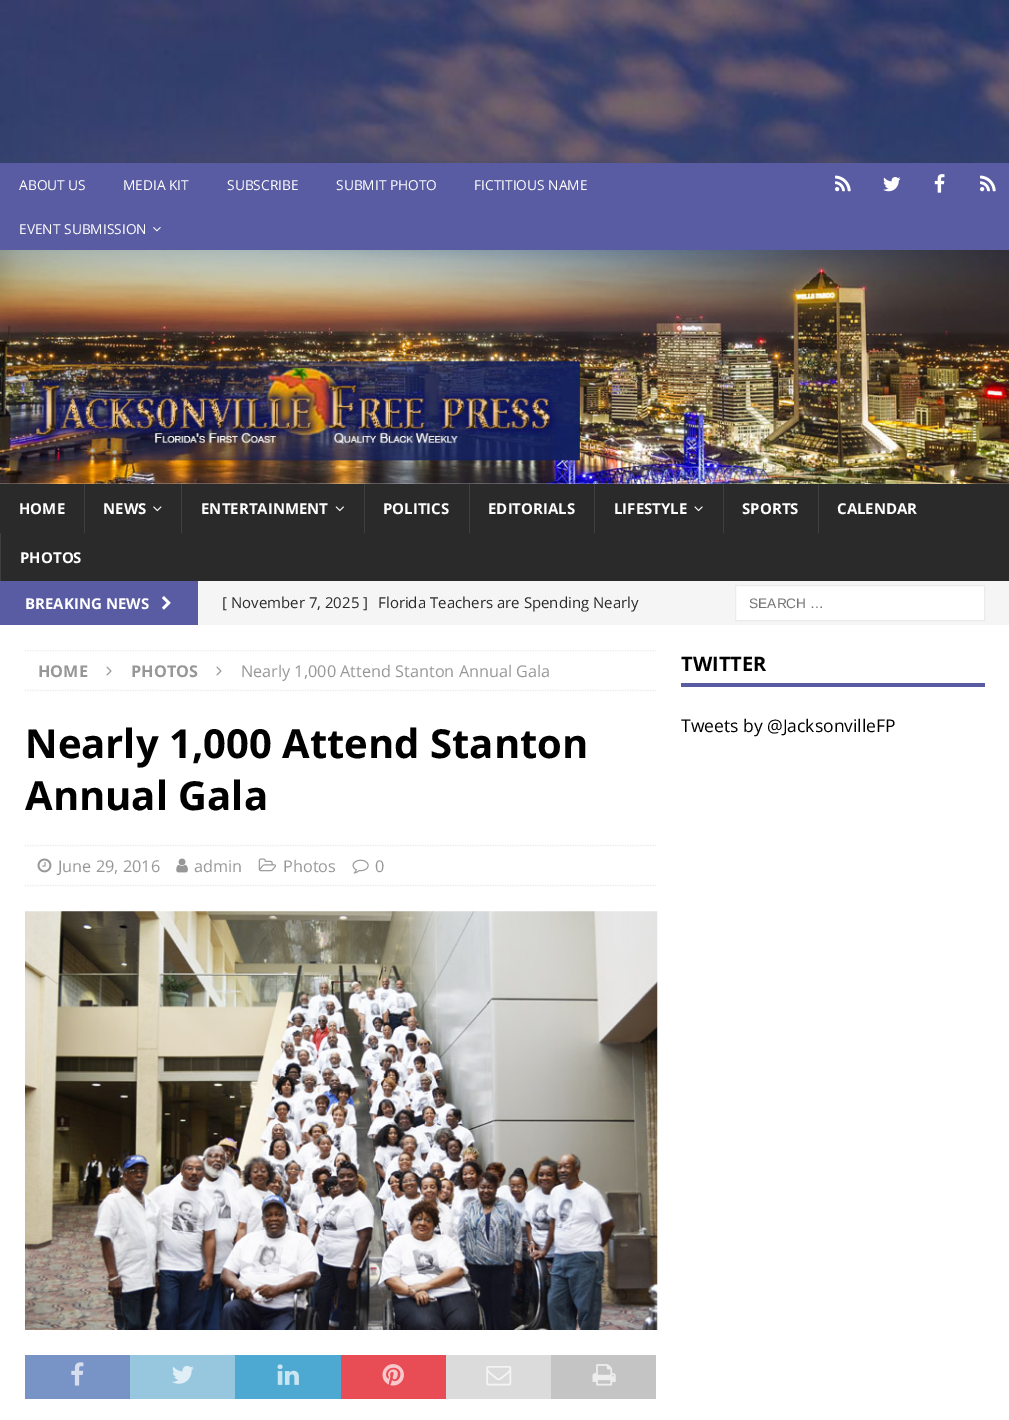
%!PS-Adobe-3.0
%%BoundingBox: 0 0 1009 1420
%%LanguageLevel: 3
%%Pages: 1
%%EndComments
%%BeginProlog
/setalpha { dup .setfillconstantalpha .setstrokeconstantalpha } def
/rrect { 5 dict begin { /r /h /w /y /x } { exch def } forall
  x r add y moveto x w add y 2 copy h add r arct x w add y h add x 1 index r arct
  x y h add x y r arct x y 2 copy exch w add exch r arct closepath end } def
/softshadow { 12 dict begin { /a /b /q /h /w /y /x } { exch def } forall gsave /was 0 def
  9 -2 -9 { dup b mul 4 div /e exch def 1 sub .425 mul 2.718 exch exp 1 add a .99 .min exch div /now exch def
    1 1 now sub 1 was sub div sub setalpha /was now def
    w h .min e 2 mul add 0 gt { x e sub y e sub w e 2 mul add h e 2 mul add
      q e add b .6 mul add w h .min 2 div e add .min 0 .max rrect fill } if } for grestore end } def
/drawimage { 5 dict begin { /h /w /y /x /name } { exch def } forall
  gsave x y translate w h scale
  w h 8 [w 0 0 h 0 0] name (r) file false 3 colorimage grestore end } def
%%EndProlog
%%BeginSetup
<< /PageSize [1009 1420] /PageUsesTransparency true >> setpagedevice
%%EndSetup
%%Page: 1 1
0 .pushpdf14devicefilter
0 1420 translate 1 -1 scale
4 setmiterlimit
1 setgray
0 0 1009 1420 rectfill
(images/1.raw) 0 0 1009 484 drawimage
0.196 setgray
0 163 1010 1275 0 6 0.17 softshadow
0.349 0.361 0.639 setrgbcolor
0 163 1009 87 rectfill
(images/2.raw) 153 227 8 5 drawimage
(images/3.raw) 835 175 16 17 drawimage
(images/4.raw) 883 177 18 15 drawimage
(images/5.raw) 934 174 11 19 drawimage
(images/3.raw) 980 175 16 17 drawimage
(images/6.raw) 0 250 1009 234 drawimage
0.165 setgray
0 484 1009 97 rectfill
0.247 setgray
84 484 1 49 rectfill
(images/7.raw) 153 506 9 6 drawimage
181 484 1 49 rectfill
(images/8.raw) 335 506 9 6 drawimage
364 484 1 49 rectfill
469 484 1 49 rectfill
594 484 1 49 rectfill
(images/9.raw) 694 506 9 6 drawimage
723 484 1 49 rectfill
818 484 1 49 rectfill
0 533 1 48 rectfill
0.961 setgray
198 581 811 44 rectfill
0.349 0.361 0.639 setrgbcolor
0 581 198 44 rectfill
(images/10.raw) 162 596 9 14 drawimage
1 setgray
newpath 735.5 585.5 moveto 984.5 585.5 lineto 984.5 620.5 lineto 735.5 620.5 lineto closepath gsave fill grestore
0.922 setgray
stroke
1 setgray
0 625 1009 795 rectfill
gsave
25 650 633 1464 rectclip
0.922 setgray
1.2 setlinewidth
[1.25 1.25] 0 setdash
newpath 25 650.5 moveto 657.5 650.5 lineto stroke
grestore
0.922 setgray
1.2 setlinewidth
[1.25 1.25] 0 setdash
newpath 25 690.5 moveto 657.5 690.5 lineto stroke
(images/11.raw) 106 666 6 10 drawimage
(images/11.raw) 216 666 6 10 drawimage
newpath 25 845.5 moveto 657.5 845.5 lineto stroke
newpath 25 885.5 moveto 657.5 885.5 lineto stroke
(images/12.raw) 37 858 15 15 drawimage
(images/13.raw) 176 858 12 15 drawimage
(images/14.raw) 258 858 18 14 drawimage
(images/15.raw) 352 859 17 15 drawimage
(images/16.raw) 25 911 633 419 drawimage
0.471 0.576 0.776 setrgbcolor
25 1355 105 44 rectfill
(images/17.raw) 71 1362 13 24 drawimage
0.592 0.776 0.875 setrgbcolor
130 1355 105 44 rectfill
(images/18.raw) 172 1365 22 19 drawimage
0.302 0.663 0.824 setrgbcolor
235 1355 106 44 rectfill
(images/19.raw) 277 1364 22 21 drawimage
0.91 0.302 0.337 setrgbcolor
341 1355 105 44 rectfill
(images/20.raw) 382 1364 22 22 drawimage
0.859 setgray
446 1355 105 44 rectfill
(images/21.raw) 486 1366 26 20 drawimage
0.769 setgray
551 1355 105 44 rectfill
(images/22.raw) 592 1364 24 22 drawimage
0.349 0.361 0.639 setrgbcolor
681 683 304 4 rectfill
/OpenSans-Regular [13.75 0 0 -13.75 0 0] selectfont
1 setgray
19 190 moveto (ABOUT US) show
123 190 moveto (MEDIA KIT) show
227 190 moveto (SUBSCRIBE) show
336 190 moveto (SUBMIT PHOTO) show
474 190 moveto (FICTITIOUS NAME) show
19 234 moveto (EVENT SUBMISSION) show
/OpenSans-Bold [15 0 0 -15 0 0] selectfont
19 514 moveto (HOME) show
103 514 moveto (NEWS) show
201 514 moveto (ENTERTAINMENT) show
383 514 moveto (POLITICS) show
488 514 moveto (EDITORIALS) show
614 514 moveto (LIFESTYLE) show
742 514 moveto (SPORTS) show
837 514 moveto (CALENDAR) show
20 563 moveto (PHOTOS) show
25 609 moveto (BREAKING NEWS) show
/OpenSans-Regular [15 0 0 -15 0 0] selectfont
0.165 setgray
222 608 moveto ([ November 7, 2025 ]) show
378 608 moveto (Florida Teachers are Spending Nearly) show
/LiberationSans-Regular [13.75 0 0 -13.75 0 0] selectfont
0.459 setgray
749 608 moveto (SEARCH …) show
/OpenSans-Bold [16.25 0 0 -16.25 0 0] selectfont
0.592 setgray
38 677 moveto (HOME) show
131 677 moveto (PHOTOS) show
/OpenSans-Regular [16.25 0 0 -16.25 0 0] selectfont
241 677 moveto (Nearly 1,000 Attend Stanton Annual Gala) show
/OpenSans-Bold [40 0 0 -40 0 0] selectfont
0 setgray
25 758 moveto (Nearly 1,000 Attend Stanton) show
25 810 moveto (Annual Gala) show
/OpenSans-Regular [16.25 0 0 -16.25 0 0] selectfont
0.592 setgray
58 872 moveto (June 29, 2016) show
194 872 moveto (admin) show
283 872 moveto (Photos) show
375 872 moveto (0) show
/OpenSans-Bold [20 0 0 -20 0 0] selectfont
0 setgray
681 671 moveto (TWITTER) show
/OpenSans-Regular [17.5 0 0 -17.5 0 0] selectfont
681 732 moveto (Tweets by @JacksonvilleFP) show
.poppdf14devicefilter showpage
%%EOF
